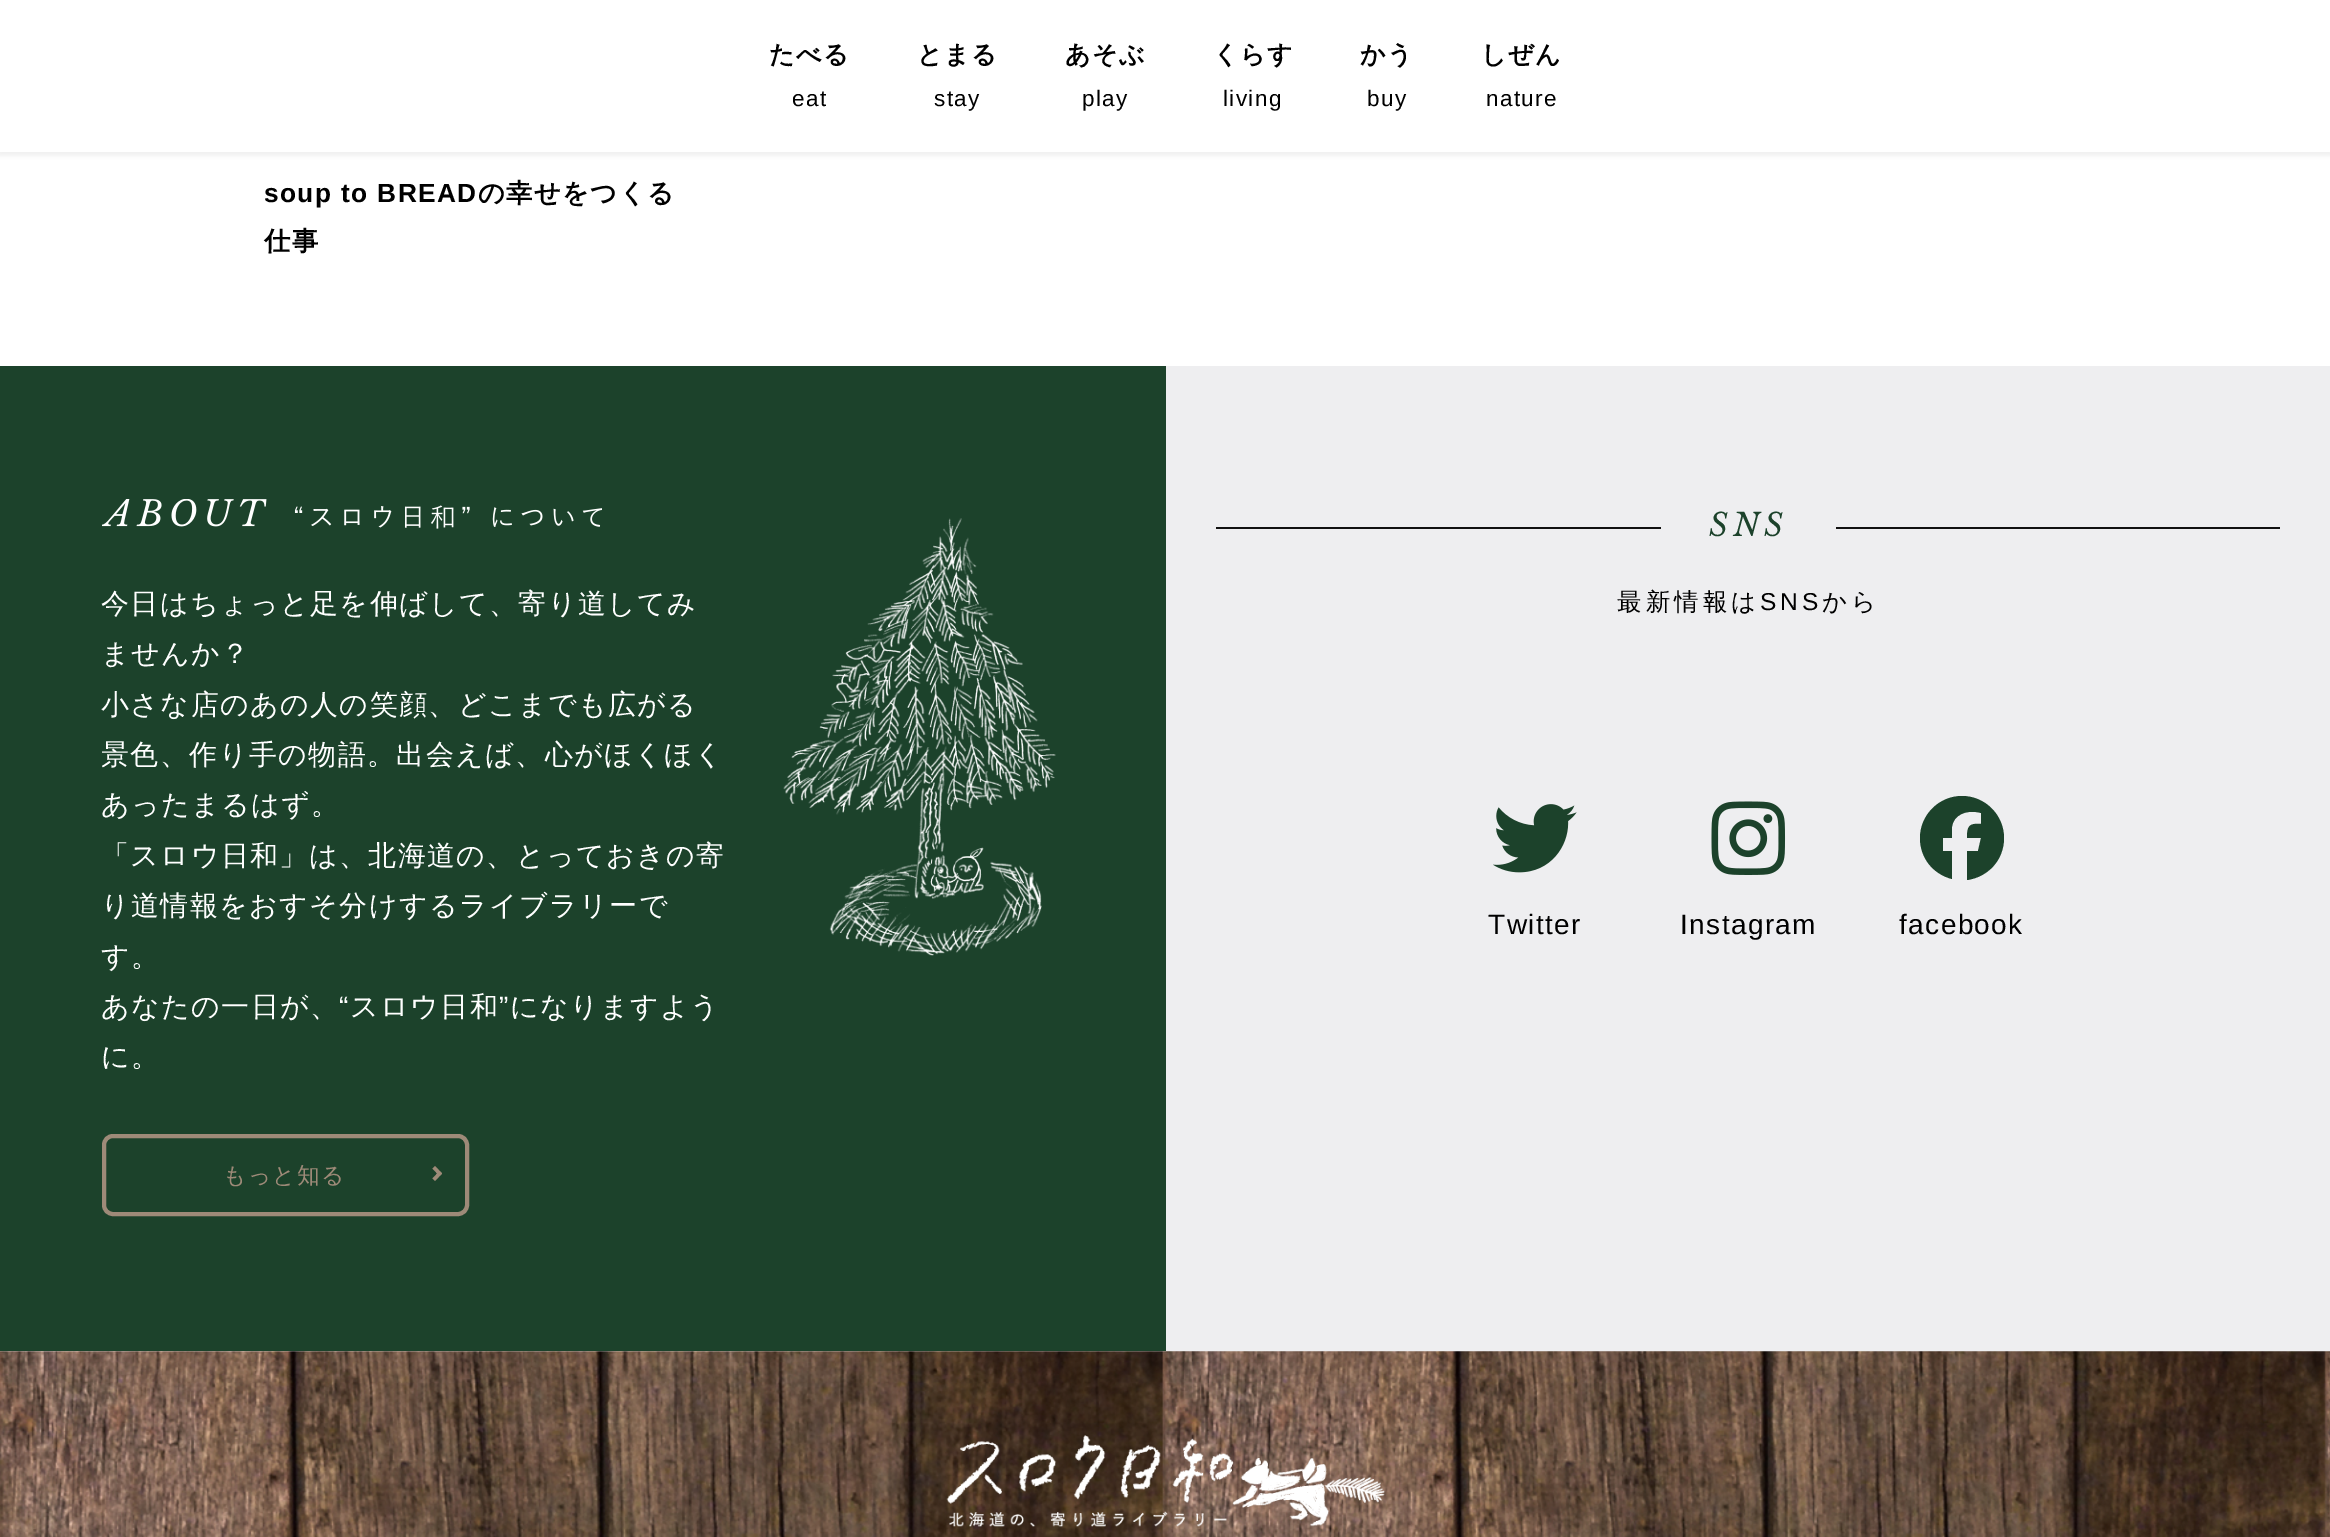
%!PS-Adobe-3.0
%%BoundingBox: 0 0 2330 1537
%%LanguageLevel: 3
%%Pages: 1
%%EndComments
%%BeginProlog
/setalpha { dup .setfillconstantalpha .setstrokeconstantalpha } def
/rrect { 5 dict begin { /r /h /w /y /x } { exch def } forall
  x r add y moveto x w add y 2 copy h add r arct x w add y h add x 1 index r arct
  x y h add x y r arct x y 2 copy exch w add exch r arct closepath end } def
/softshadow { 12 dict begin { /a /b /q /h /w /y /x } { exch def } forall gsave /was 0 def
  9 -2 -9 { dup b mul 4 div /e exch def 1 sub .425 mul 2.718 exch exp 1 add a .99 .min exch div /now exch def
    1 1 now sub 1 was sub div sub setalpha /was now def
    w h .min e 2 mul add 0 gt { x e sub y e sub w e 2 mul add h e 2 mul add
      q e add b .6 mul add w h .min 2 div e add .min 0 .max rrect fill } if } for grestore end } def
/drawimage { 5 dict begin { /h /w /y /x /name } { exch def } forall
  gsave x y translate w h scale
  w h 8 [w 0 0 h 0 0] name (r) file false 3 colorimage grestore end } def
%%EndProlog
%%BeginSetup
<< /PageSize [2330 1537] /PageUsesTransparency true >> setpagedevice
%%EndSetup
%%Page: 1 1
0 .pushpdf14devicefilter
0 1537 translate 1 -1 scale
4 setmiterlimit
1 setgray
0 0 2330 1537 rectfill
0 setgray
-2 0 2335 156 0 2 0.05 softshadow
1 setgray
0 0 2330 152 rectfill
0.933 0.933 0.941 setrgbcolor
0 366 2330 986 rectfill
0.11 0.259 0.169 setrgbcolor
0 366 1166 985 rectfill
(images/1.raw) 102 499 500 30 drawimage
0.62 0.541 0.471 setrgbcolor
4 setlinewidth
104 1136 363 78 9 rrect stroke
newpath 435 1166 moveto 442 1173.5 lineto 439.5 1176 lineto 432.5 1168.5 lineto closepath fill
newpath 439.5 1171 moveto 442 1173.5 lineto 435 1181 lineto 432.5 1178.5 lineto closepath fill
(images/2.raw) 783 518 273 438 drawimage
0.067 setgray
1216 527 445 2 rectfill
1836 527 444 2 rectfill
(images/3.raw) 1493 804 84 69 drawimage
(images/4.raw) 1711 801 75 74 drawimage
0.11 0.259 0.169 setrgbcolor
newpath 2004 838 moveto 2004 815 1985 796 1962 796 curveto 1939 796 1920 815 1920 838 curveto 1920 858 1933 874 1952 879 curveto 1952 851 lineto 1943 851 lineto 1943 838 lineto 1952 838 lineto 1952 833 1951 828 1953 823 curveto 1957 812 1971 810 1981 813 curveto 1981 824 lineto 1969 823 1967 826 1967 838 curveto 1981 838 lineto 1978 851 lineto 1967 851 lineto 1967 880 lineto 1988 877 2004 860 2004 838 curveto closepath fill
(images/5.raw) 0 1351 2330 186 drawimage
(images/6.raw) 946 1435 439 92 drawimage
/WenQuanYiZenHei-Bold [25 0 0 -25 0 0] selectfont
0 setgray
769 63 moveto 1.4 0 (たべる) ashow
/LiberationSans-Regular [22.5 0 0 -22.5 0 0] selectfont
792 106 moveto 1.4 0 (eat) ashow
/WenQuanYiZenHei-Bold [25 0 0 -25 0 0] selectfont
917 63 moveto 1.4 0 (とまる) ashow
/LiberationSans-Regular [22.5 0 0 -22.5 0 0] selectfont
934 106 moveto 1.4 0 (stay) ashow
/WenQuanYiZenHei-Bold [25 0 0 -25 0 0] selectfont
1065 63 moveto 1.4 0 (あそぶ) ashow
/LiberationSans-Regular [22.5 0 0 -22.5 0 0] selectfont
1082 106 moveto 1.4 0 (play) ashow
/WenQuanYiZenHei-Bold [25 0 0 -25 0 0] selectfont
1213 63 moveto 1.4 0 (くらす) ashow
/LiberationSans-Regular [22.5 0 0 -22.5 0 0] selectfont
1223 106 moveto 1.4 0 (living) ashow
/WenQuanYiZenHei-Bold [25 0 0 -25 0 0] selectfont
1360 63 moveto 1.4 0 (かう) ashow
/LiberationSans-Regular [22.5 0 0 -22.5 0 0] selectfont
1367 106 moveto 1.4 0 (buy) ashow
/WenQuanYiZenHei-Bold [25 0 0 -25 0 0] selectfont
1481 63 moveto 1.4 0 (しぜん) ashow
/LiberationSans-Regular [22.5 0 0 -22.5 0 0] selectfont
1486 106 moveto 1.4 0 (nature) ashow
/LiberationSans-Bold [26.25 0 0 -26.25 0 0] selectfont
264 202 moveto 1.4 0 (soup to BREAD) ashow
/WenQuanYiZenHei-Bold [26.25 0 0 -26.25 0 0] selectfont
478 202 moveto 1.4 0 (の幸せをつくる) ashow
264 250 moveto 1.4 0 (仕事) ashow
/WenQuanYiZenHei-Medium [28 0 0 -28 0 0] selectfont
1 setgray
101 613 moveto 1.4 0 (今日はちょっと足を伸ばして、寄り道してみ) ashow
101 663 moveto 1.4 0 (ませんか？) ashow
101 714 moveto 1.4 0 (小さな店のあの人の笑顔、どこまでも広がる) ashow
gsave
102 499 962 717 rectclip
101 764 moveto 1.4 0 (景色、作り手の物語。出会えば、心がほくほく) ashow
grestore
101 814 moveto 1.4 0 (あったまるはず。) ashow
101 865 moveto 1.4 0 (「スロウ日和」は、北海道の、とっておきの寄) ashow
101 915 moveto 1.4 0 (り道情報をおすそ分けするライブラリーで) ashow
101 966 moveto 1.4 0 (す。) ashow
101 1016 moveto 1.4 0 (あなたの一日が、) ashow
/LiberationSans-Regular [28 0 0 -28 0 0] selectfont
339 1016 moveto 1.4 0 (“) ashow
/WenQuanYiZenHei-Medium [28 0 0 -28 0 0] selectfont
350 1016 moveto 1.4 0 (スロウ日和) ashow
/LiberationSans-Regular [28 0 0 -28 0 0] selectfont
499 1016 moveto 1.4 0 (”) ashow
/WenQuanYiZenHei-Medium [28 0 0 -28 0 0] selectfont
510 1016 moveto 1.4 0 (になりますよう) ashow
101 1066 moveto 1.4 0 (に。) ashow
/WenQuanYiZenHei-Medium [22.75 0 0 -22.75 0 0] selectfont
0.62 0.541 0.471 setrgbcolor
223 1183 moveto 1.4 0 (もっと知る) ashow
/LibreBaskerville-Italic [31.5 0 0 -31.5 0 0] selectfont
0.11 0.259 0.169 setrgbcolor
1709 536 moveto 5 0 (SNS) ashow
/WenQuanYiZenHei-Medium [24.5 0 0 -24.5 0 0] selectfont
0 setgray
1617 610 moveto 4 0 (最新情報は) ashow
/LiberationSans-Regular [24.5 0 0 -24.5 0 0] selectfont
1760 610 moveto 4 0 (SNS) ashow
/WenQuanYiZenHei-Medium [24.5 0 0 -24.5 0 0] selectfont
1822 610 moveto 4 0 (から) ashow
/LiberationSans-Regular [28 0 0 -28 0 0] selectfont
1488 934 moveto 1.4 0 (Twitter) ashow
1680 934 moveto 1.4 0 (Instagram) ashow
1899 934 moveto 1.4 0 (facebook) ashow
.poppdf14devicefilter showpage
%%EOF
